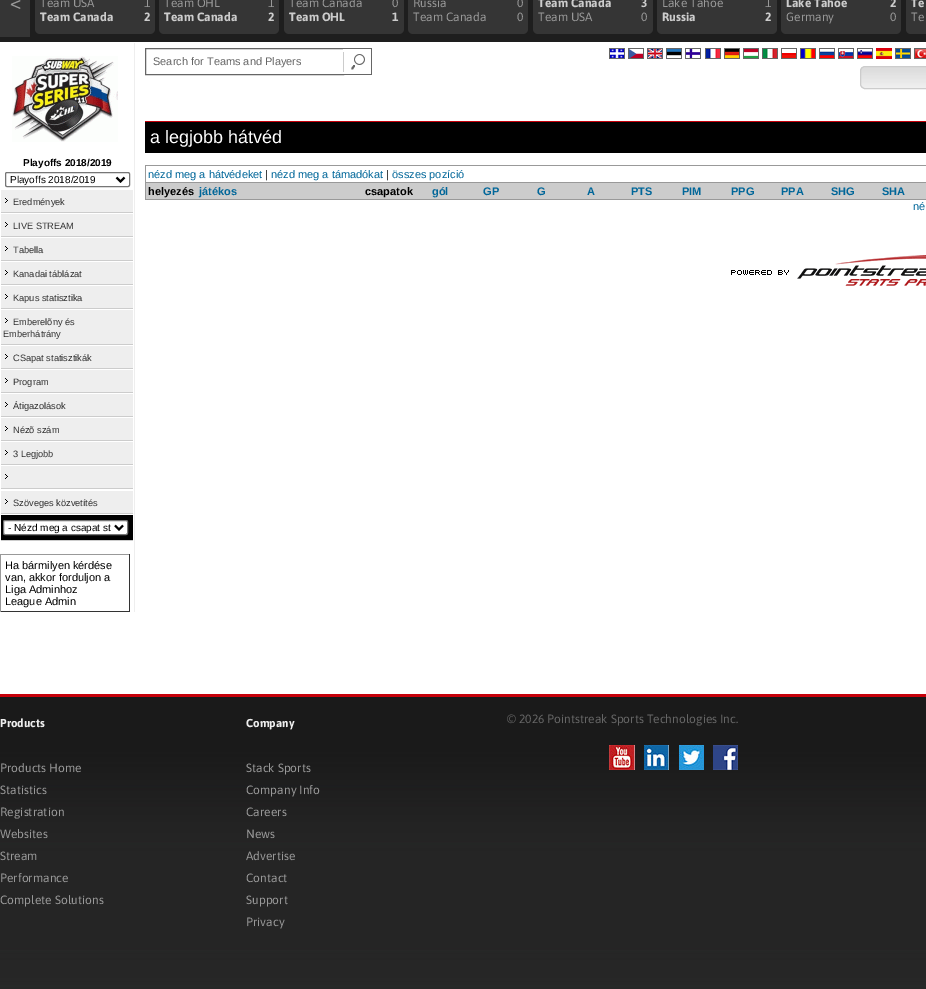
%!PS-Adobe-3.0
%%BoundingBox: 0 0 926 989
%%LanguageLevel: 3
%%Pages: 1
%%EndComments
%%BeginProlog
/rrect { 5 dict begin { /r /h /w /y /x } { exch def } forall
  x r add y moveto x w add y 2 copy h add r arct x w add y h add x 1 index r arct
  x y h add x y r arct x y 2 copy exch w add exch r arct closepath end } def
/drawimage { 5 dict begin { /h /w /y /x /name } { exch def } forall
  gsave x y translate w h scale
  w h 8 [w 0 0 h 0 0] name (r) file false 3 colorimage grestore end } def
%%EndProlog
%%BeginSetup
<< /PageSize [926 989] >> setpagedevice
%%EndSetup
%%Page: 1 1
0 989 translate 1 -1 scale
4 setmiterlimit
1 setgray
0 0 926 989 rectfill
0.118 setgray
0 0 926 42 rectfill
0.208 setgray
0 0 30 37 rectfill
35 -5 120 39 5 rrect fill
159 -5 120 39 5 rrect fill
284 -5 120 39 5 rrect fill
408 -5 120 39 5 rrect fill
533 -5 120 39 5 rrect fill
657 -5 120 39 5 rrect fill
781 -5 120 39 5 rrect fill
newpath 911 -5 moveto 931 -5 lineto 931 34 lineto 911 34 lineto 908 34 906 32 906 29 curveto 906 0 lineto 906 -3 908 -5 911 -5 curveto closepath fill
(images/1.raw) 609 48 16 11 drawimage
(images/2.raw) 628 48 16 11 drawimage
(images/3.raw) 647 48 16 11 drawimage
(images/4.raw) 666 48 16 11 drawimage
(images/5.raw) 685 48 16 11 drawimage
(images/6.raw) 705 48 16 11 drawimage
(images/7.raw) 724 48 16 11 drawimage
(images/8.raw) 743 48 16 11 drawimage
(images/9.raw) 762 48 16 11 drawimage
(images/10.raw) 781 48 16 11 drawimage
(images/11.raw) 800 48 16 11 drawimage
(images/12.raw) 819 48 16 11 drawimage
(images/13.raw) 838 48 16 11 drawimage
(images/14.raw) 857 48 16 11 drawimage
(images/15.raw) 876 48 16 11 drawimage
(images/16.raw) 895 48 16 11 drawimage
(images/17.raw) 914 48 12 11 drawimage
0.4 setgray
145.5 48.5 198 26 rectstroke
(images/18.raw) 343 48 29 27 drawimage
(images/19.raw) 860 67 66 22 drawimage
0.8 setgray
860.5 66.5 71 22 4.5 rrect stroke
0 setgray
145 122 781 31 rectfill
0.776 0 0.039 setrgbcolor
145 121 781 1 rectfill
0.6 setgray
145 165 781 35 rectfill
1 setgray
146 166 780 16 rectfill
0.8 setgray
146 183 780 16 rectfill
(images/20.raw) 731 255 195 31 drawimage
0.933 setgray
134 43 1 569 rectfill
(images/21.raw) 12 56 106 86 drawimage
0.463 setgray
5.5 172.5 124 14 1.5 rrect stroke
0 setgray
2 setlinewidth
newpath 116.5 177.5 moveto 120.5 181.5 lineto 124.5 177.5 lineto stroke
0.933 setgray
1 190 132 22 rectfill
0.8 setgray
1 212 132 1 rectfill
(images/22.raw) 5 198 3 5 drawimage
0.933 setgray
1 214 132 22 rectfill
0.8 setgray
1 236 132 1 rectfill
(images/22.raw) 5 222 3 5 drawimage
0.933 setgray
1 238 132 22 rectfill
0.8 setgray
1 260 132 1 rectfill
(images/22.raw) 5 246 3 5 drawimage
0.933 setgray
1 262 132 22 rectfill
0.8 setgray
1 284 132 1 rectfill
(images/22.raw) 5 270 3 5 drawimage
0.933 setgray
1 286 132 22 rectfill
0.8 setgray
1 308 132 1 rectfill
(images/22.raw) 5 294 3 5 drawimage
0.933 setgray
1 310 132 34 rectfill
0.8 setgray
1 344 132 1 rectfill
(images/22.raw) 5 318 3 5 drawimage
0.933 setgray
1 346 132 22 rectfill
0.8 setgray
1 368 132 1 rectfill
(images/22.raw) 5 354 3 5 drawimage
0.933 setgray
1 370 132 22 rectfill
0.8 setgray
1 392 132 1 rectfill
(images/22.raw) 5 378 3 5 drawimage
0.933 setgray
1 394 132 22 rectfill
0.8 setgray
1 416 132 1 rectfill
(images/22.raw) 5 402 3 5 drawimage
0.933 setgray
1 418 132 22 rectfill
0.8 setgray
1 440 132 1 rectfill
(images/22.raw) 5 426 3 5 drawimage
0.933 setgray
1 442 132 22 rectfill
0.8 setgray
1 464 132 1 rectfill
(images/22.raw) 5 450 3 5 drawimage
0.933 setgray
1 466 132 22 rectfill
0.8 setgray
1 488 132 1 rectfill
(images/22.raw) 5 474 3 5 drawimage
0.933 setgray
1 491 132 22 rectfill
0.8 setgray
1 513 132 1 rectfill
(images/22.raw) 5 499 3 5 drawimage
0 setgray
1 515 132 25 rectfill
0.8 setgray
1 540 132 1 rectfill
1 setgray
3.5 520.5 124 14 1.5 rrect gsave fill grestore
0.463 setgray
1 setlinewidth
stroke
0 setgray
2 setlinewidth
newpath 115 525.5 moveto 119 529.5 lineto 123 525.5 lineto stroke
0.6 setgray
0 554 130 1 rectfill
0.2 setgray
129 554 1 58 rectfill
0 611 130 1 rectfill
0.6 setgray
0 554 1 58 rectfill
(images/23.raw) 0 697 926 292 drawimage
0.776 0 0.039 setrgbcolor
0 694 926 3 rectfill
(images/24.raw) 609 745 26 25 drawimage
(images/25.raw) 644 745 25 25 drawimage
(images/26.raw) 679 745 25 25 drawimage
(images/27.raw) 713 745 25 25 drawimage
/Asap-Regular [20 0 0 -20 0 0] selectfont
0.6 setgray
10 9 moveto (<) show
/Asap-Regular [12 0 0 -12 0 0] selectfont
40 7 moveto (Team USA) show
144 7 moveto (1) show
/Asap-Bold [12 0 0 -12 0 0] selectfont
0.8 setgray
40 21 moveto (Team Canada) show
144 21 moveto (2) show
/Asap-Regular [12 0 0 -12 0 0] selectfont
0.6 setgray
164 7 moveto (Team OHL) show
268 7 moveto (1) show
/Asap-Bold [12 0 0 -12 0 0] selectfont
0.8 setgray
164 21 moveto (Team Canada) show
268 21 moveto (2) show
/Asap-Regular [12 0 0 -12 0 0] selectfont
0.6 setgray
289 7 moveto (Team Canada) show
392 7 moveto (0) show
/Asap-Bold [12 0 0 -12 0 0] selectfont
0.8 setgray
289 21 moveto (Team OHL) show
392 21 moveto (1) show
/Asap-Regular [12 0 0 -12 0 0] selectfont
0.6 setgray
413 7 moveto (Russia) show
517 7 moveto (0) show
413 21 moveto (Team Canada) show
517 21 moveto (0) show
/Asap-Bold [12 0 0 -12 0 0] selectfont
0.8 setgray
538 7 moveto (Team Canada) show
641 7 moveto (3) show
/Asap-Regular [12 0 0 -12 0 0] selectfont
0.6 setgray
538 21 moveto (Team USA) show
641 21 moveto (0) show
662 7 moveto (Lake Tahoe) show
765 7 moveto (1) show
/Asap-Bold [12 0 0 -12 0 0] selectfont
0.8 setgray
662 21 moveto (Russia) show
765 21 moveto (2) show
786 7 moveto (Lake Tahoe) show
890 7 moveto (2) show
/Asap-Regular [12 0 0 -12 0 0] selectfont
0.6 setgray
786 21 moveto (Germany) show
890 21 moveto (0) show
/Asap-Bold [12 0 0 -12 0 0] selectfont
0.8 setgray
911 7 moveto (Te) show
/Asap-Regular [12 0 0 -12 0 0] selectfont
0.6 setgray
911 21 moveto (Te) show
/LiberationSans-Regular [11 0 0 -11 0 0] selectfont
0.4 setgray
153 65 moveto (Search for Teams and Players) show
/LiberationSans-Regular [18 0 0 -18 0 0] selectfont
1 setgray
150 143 moveto (a legjobb hátvéd) show
/LiberationSans-Regular [11 0 0 -11 0 0] selectfont
0 0.4 0.6 setrgbcolor
148 178 moveto (nézd meg a hátvédeket) show
0 setgray
265 178 moveto (|) show
0 0.4 0.6 setrgbcolor
271 178 moveto (nézd meg a támadókat) show
0 setgray
386 178 moveto (|) show
0 0.4 0.6 setrgbcolor
392 178 moveto (összes pozíció) show
/LiberationSans-Bold [11 0 0 -11 0 0] selectfont
0 setgray
148 195 moveto (helyezés) show
0 0.4 0.6 setrgbcolor
199 195 moveto (játékos) show
0 setgray
365 195 moveto (csapatok) show
0 0.4 0.6 setrgbcolor
432 195 moveto (gól) show
483 195 moveto (GP) show
537 195 moveto (G) show
587 195 moveto (A) show
631 195 moveto (PTS) show
682 195 moveto (PIM) show
731 195 moveto (PPG) show
781 195 moveto (PPA) show
831 195 moveto (SHG) show
882 195 moveto (SHA) show
/LiberationSans-Regular [11 0 0 -11 0 0] selectfont
913 210 moveto (né) show
/LiberationSans-Bold [10 0 0 -10 0 0] selectfont
0 setgray
23 166 moveto (Playoffs 2018/2019) show
/LiberationSans-Regular [10 0 0 -10 0 0] selectfont
10 183 moveto (Playoffs 2018/2019) show
/LiberationSans-Regular [9.25 0 0 -9.25 0 0] selectfont
0.2 setgray
13 205 moveto (Eredmények) show
13 229 moveto (LIVE STREAM) show
13 253 moveto (Tabella) show
13 277 moveto (Kanadai táblázat) show
13 301 moveto (Kapus statisztika) show
13 325 moveto (Emberelõny és) show
3 337 moveto (Emberhátrány) show
13 361 moveto (CSapat statisztikák) show
13 385 moveto (Program) show
13 409 moveto (Átigazolások) show
13 433 moveto (Nézõ szám) show
13 457 moveto (3 Legjobb) show
13 506 moveto (Szöveges közvetítés) show
/LiberationSans-Regular [10 0 0 -10 0 0] selectfont
0 setgray
8 531 moveto (- Nézd meg a csapat st) show
/LiberationSans-Regular [11 0 0 -11 0 0] selectfont
5 569 moveto (Ha bármilyen kérdése) show
5 581 moveto (van, akkor forduljon a) show
5 593 moveto (Liga Adminhoz) show
5 605 moveto (League Admin) show
/Asap-Bold [11.5 0 0 -11.5 0 0] selectfont
0.933 setgray
0 727 moveto (Products) show
/Asap-Regular [12 0 0 -12 0 0] selectfont
0.6 setgray
0 772 moveto (Products Home) show
0 794 moveto (Statistics) show
0 816 moveto (Registration) show
0 838 moveto (Websites) show
0 860 moveto (Stream) show
0 882 moveto (Performance) show
0 904 moveto (Complete Solutions) show
/Asap-Bold [11.5 0 0 -11.5 0 0] selectfont
0.933 setgray
246 727 moveto (Company) show
/Asap-Regular [12 0 0 -12 0 0] selectfont
0.6 setgray
246 772 moveto (Stack Sports) show
246 794 moveto (Company Info) show
246 816 moveto (Careers) show
246 838 moveto (News) show
246 860 moveto (Advertise) show
246 882 moveto (Contact) show
246 904 moveto (Support) show
246 926 moveto (Privacy) show
0.4 setgray
507 723 moveto (© 2026 Pointstreak Sports Technologies Inc.) show
showpage
%%EOF
